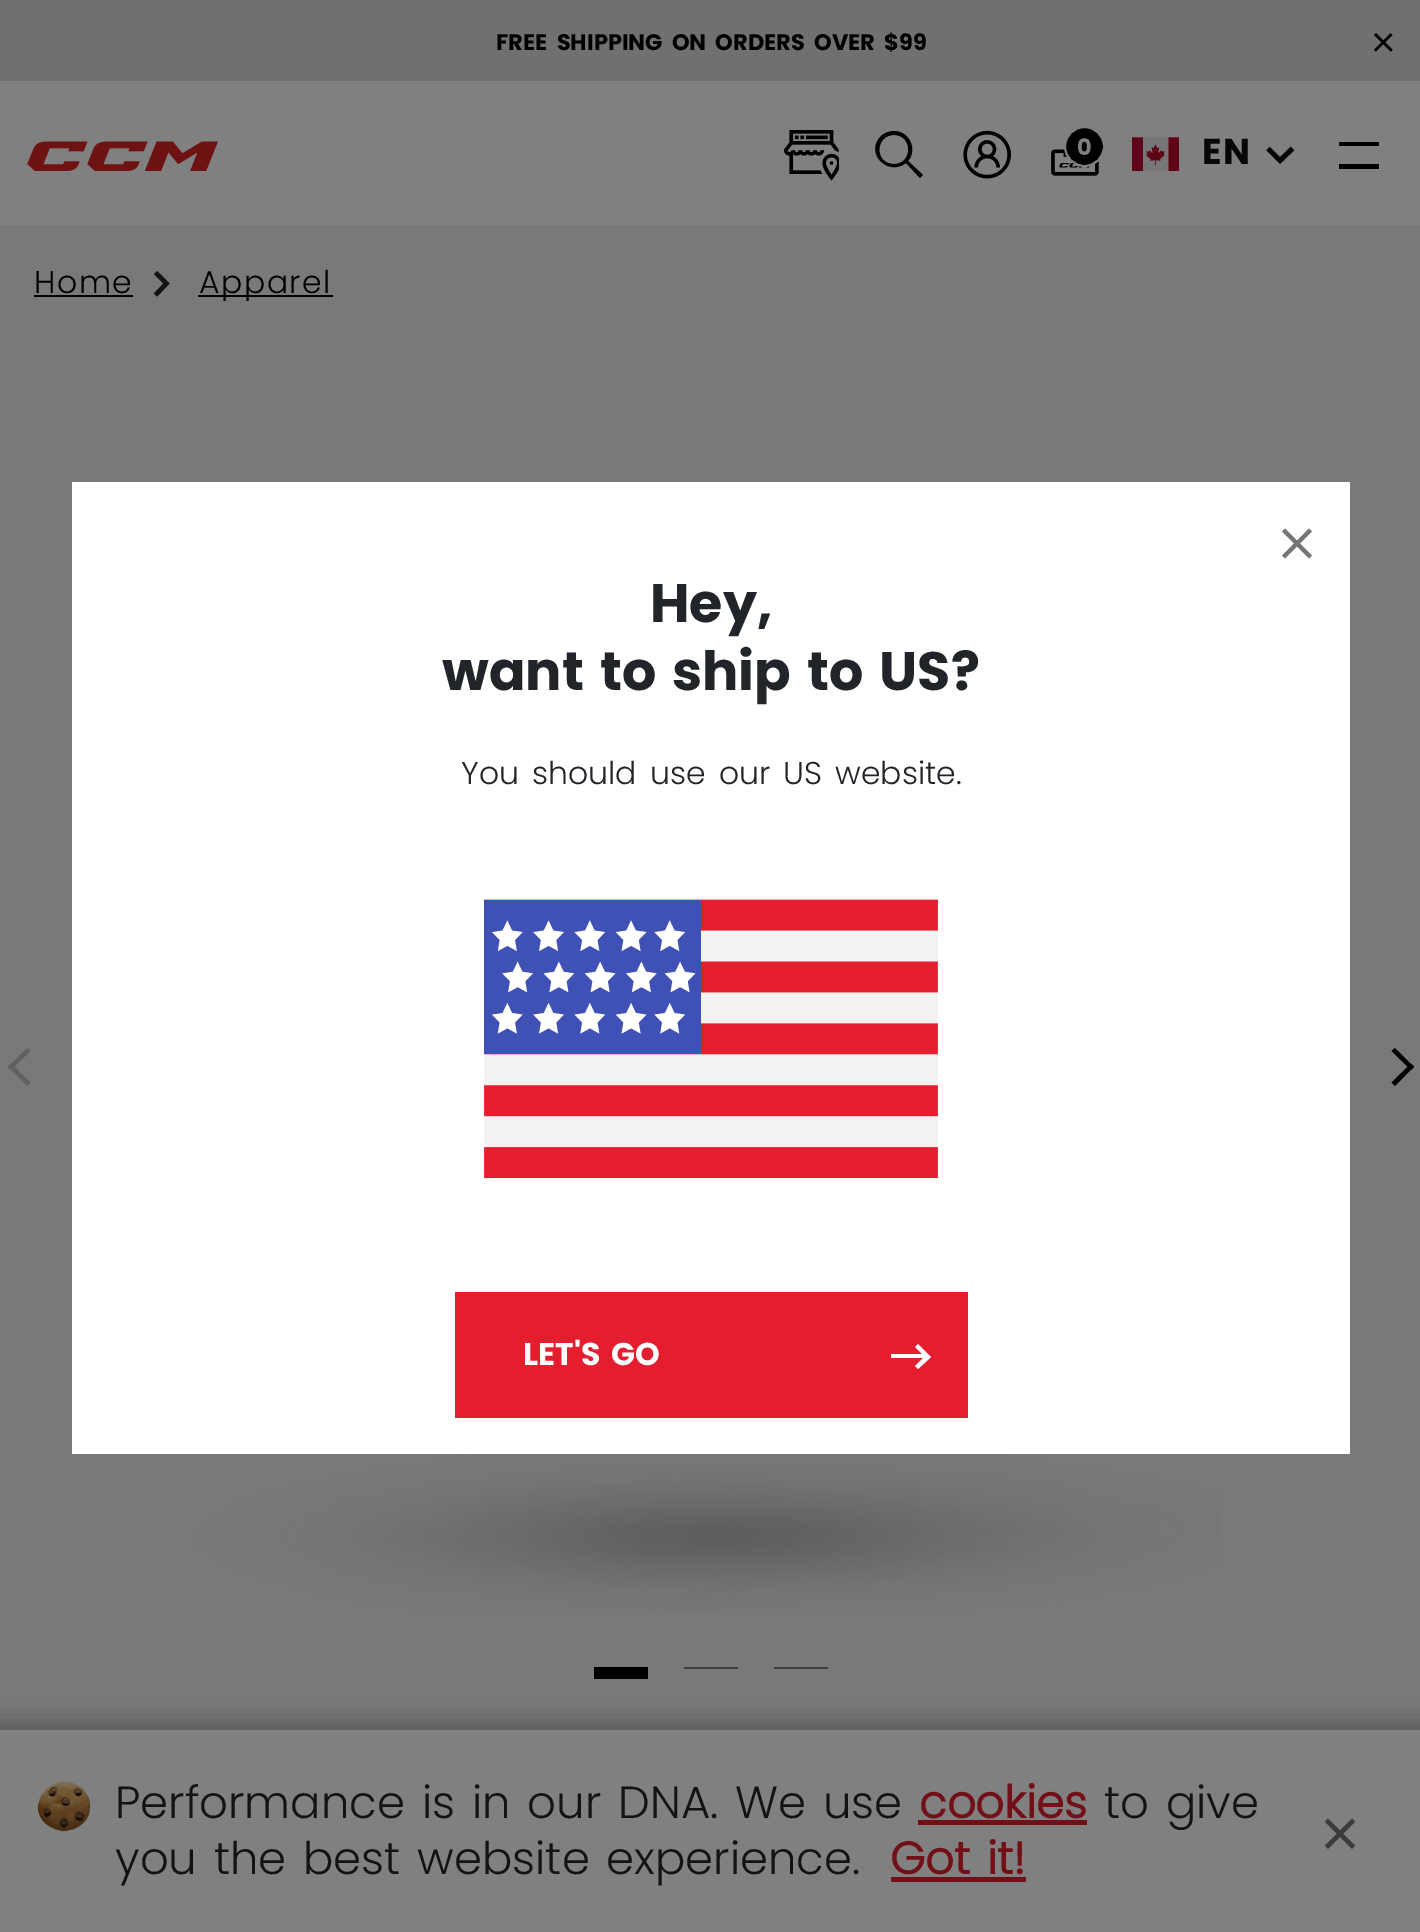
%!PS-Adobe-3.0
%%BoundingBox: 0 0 1420 1932
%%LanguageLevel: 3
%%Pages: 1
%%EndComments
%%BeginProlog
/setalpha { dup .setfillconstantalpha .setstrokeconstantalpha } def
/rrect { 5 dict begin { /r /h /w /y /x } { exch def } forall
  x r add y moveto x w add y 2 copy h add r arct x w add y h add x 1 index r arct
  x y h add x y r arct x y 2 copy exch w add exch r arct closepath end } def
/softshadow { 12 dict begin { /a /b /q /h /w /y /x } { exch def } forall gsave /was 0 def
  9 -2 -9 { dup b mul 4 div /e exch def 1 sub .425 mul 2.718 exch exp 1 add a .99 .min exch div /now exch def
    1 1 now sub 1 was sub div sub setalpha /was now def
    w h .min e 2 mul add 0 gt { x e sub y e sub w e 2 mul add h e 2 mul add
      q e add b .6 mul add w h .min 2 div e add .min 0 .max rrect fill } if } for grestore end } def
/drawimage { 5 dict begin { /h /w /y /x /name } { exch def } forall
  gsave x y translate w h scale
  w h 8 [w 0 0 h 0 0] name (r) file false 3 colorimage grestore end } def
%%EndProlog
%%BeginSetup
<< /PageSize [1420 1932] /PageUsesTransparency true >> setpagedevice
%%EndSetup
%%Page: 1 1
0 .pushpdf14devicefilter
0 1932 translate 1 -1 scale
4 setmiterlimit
0.502 setgray
0 0 1420 1932 rectfill
0.439 setgray
0 0 1420 81 rectfill
(images/1.raw) 27 141 191 30 drawimage
(images/2.raw) 783 130 56 51 drawimage
0 setgray
newpath 894 131 moveto 909 131 918 149 908 161 curveto 923 175 lineto 920 178 lineto 906 163 lineto 888 177 864 153 881 136 curveto 884 133 889 131 894 131 curveto closepath 894 135 moveto 875 135 874 164 894 164 curveto 913 164 913 135 894 135 curveto closepath fill
(images/3.raw) 963 130 48 49 drawimage
(images/4.raw) 1051 146 48 30 drawimage
newpath 1084.5 146.5 19.5 0 360 arc closepath gsave fill grestore
0.502 setgray
2 setlinewidth
stroke
(images/5.raw) 1132 137 47 34 drawimage
0.027 setgray
4.9 setlinewidth
newpath 1292.5 148.5 moveto 1280 160.5 lineto 1268 148.5 lineto stroke
0 setgray
newpath 1379 142 moveto 1339 142 lineto 1339 146 lineto 1379 146 lineto closepath 1379 164 moveto 1339 164 lineto 1339 169 lineto 1379 169 lineto closepath eofill
0.475 setgray
0 225 1420 1505 rectfill
0 setgray
34 295 99 2 rectfill
0.067 0.075 0.082 setrgbcolor
4.5 setlinewidth
newpath 155.5 272.5 moveto 166.5 283.5 lineto 155.5 295 lineto stroke
0 setgray
198 295 135 2 rectfill
0.38 setgray
newpath 8 1067 moveto 27 1048 lineto 30.5 1051 lineto 11 1070 lineto closepath fill
newpath 11 1063.5 moveto 30.5 1082.5 lineto 27 1086 lineto 8 1066.5 lineto closepath fill
0 setgray
newpath 1395 1048 moveto 1414 1067 lineto 1411 1070 lineto 1391.5 1051 lineto closepath fill
newpath 1391.5 1082.5 moveto 1411 1063.5 lineto 1414 1066.5 lineto 1395 1086 lineto closepath fill
(images/6.raw) 184 1454 1037 160 drawimage
594 1667 54 12 rectfill
0.243 setgray
684 1667 54 2 rectfill
774 1667 54 2 rectfill
1 setgray
72 482 1278 972 rectfill
0.463 setgray
newpath 1285 528.5 moveto 1312 555.5 lineto 1309 558.5 lineto 1282 531.5 lineto closepath fill
newpath 1312 531.5 moveto 1285 558.5 lineto 1282 555.5 lineto 1309 528.5 lineto closepath fill
(images/7.raw) 484 899 454 280 drawimage
0.894 0.118 0.18 setrgbcolor
455 1292 513 126 rectfill
1 setgray
newpath 930 1358 moveto 931 1357 lineto 918 1344 lineto 915 1347 lineto 922 1354 lineto 891 1354 lineto 891 1358 lineto 923 1358 lineto 915 1366 lineto 918 1369 lineto closepath eofill
0 setgray
-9 1721 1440 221 0 11 0.25 softshadow
0.502 setgray
0 1730 1420 202 rectfill
(images/8.raw) 37 1781 54 51 drawimage
0.447 0.059 0.09 setrgbcolor
918 1820 169 5 rectfill
891 1877 135 5 rectfill
0.231 setgray
newpath 1328 1818.5 moveto 1355 1845.5 lineto 1352 1849 lineto 1325 1822 lineto closepath fill
newpath 1355 1822 moveto 1328 1849 lineto 1325 1845.5 lineto 1352 1818.5 lineto closepath fill
/Poppins-Bold [22.5 0 0 -22.5 0 0] selectfont
0 setgray
496 50 moveto 4.5 0 32 (FREE SHIPPING ON ORDERS OVER $99) widthshow
/Poppins-Light [45 0 0 -45 0 0] selectfont
1370 59 moveto (×) show
/Poppins-Bold [22.5 0 0 -22.5 0 0] selectfont
0.502 setgray
1077 155 moveto (0) show
/Poppins-Bold [36 0 0 -36 0 0] selectfont
0.027 setgray
1202 164 moveto 2 0 (EN) ashow
/Poppins-Light [31.5 0 0 -31.5 0 0] selectfont
0 setgray
34 293 moveto 1.5 0 (Home) ashow
199 293 moveto 1.5 0 (Apparel) ashow
/Poppins-Bold [54 0 0 -54 0 0] selectfont
0.129 0.145 0.161 setrgbcolor
650 622 moveto (Hey,) show
442 690 moveto 4.5 0 32 (want to ship to US?) widthshow
/Poppins-Light [31.5 0 0 -31.5 0 0] selectfont
461 784 moveto 4.5 0 32 (You should use our US website.) widthshow
/Poppins-Bold [31.5 0 0 -31.5 0 0] selectfont
1 setgray
523 1365 moveto 4.5 0 32 (LET'S GO) widthshow
/Poppins-Light [45 0 0 -45 0 0] selectfont
0.067 0.075 0.082 setrgbcolor
115 1818 moveto 4.5 0 32 (Performance is in our DNA. We use) widthshow
/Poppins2-Bold [45 0 0 -45 0 0] selectfont
0.447 0.059 0.09 setrgbcolor
919 1818 moveto (cookies) show
/Poppins-Light [45 0 0 -45 0 0] selectfont
0.067 0.075 0.082 setrgbcolor
1104 1818 moveto 4.5 0 32 (to give) widthshow
115 1874 moveto 4.5 0 32 (you the best website experience.) widthshow
/Poppins2-Bold [45 0 0 -45 0 0] selectfont
0.447 0.059 0.09 setrgbcolor
890 1874 moveto 4.5 0 32 (Got it!) widthshow
.poppdf14devicefilter showpage
%%EOF
